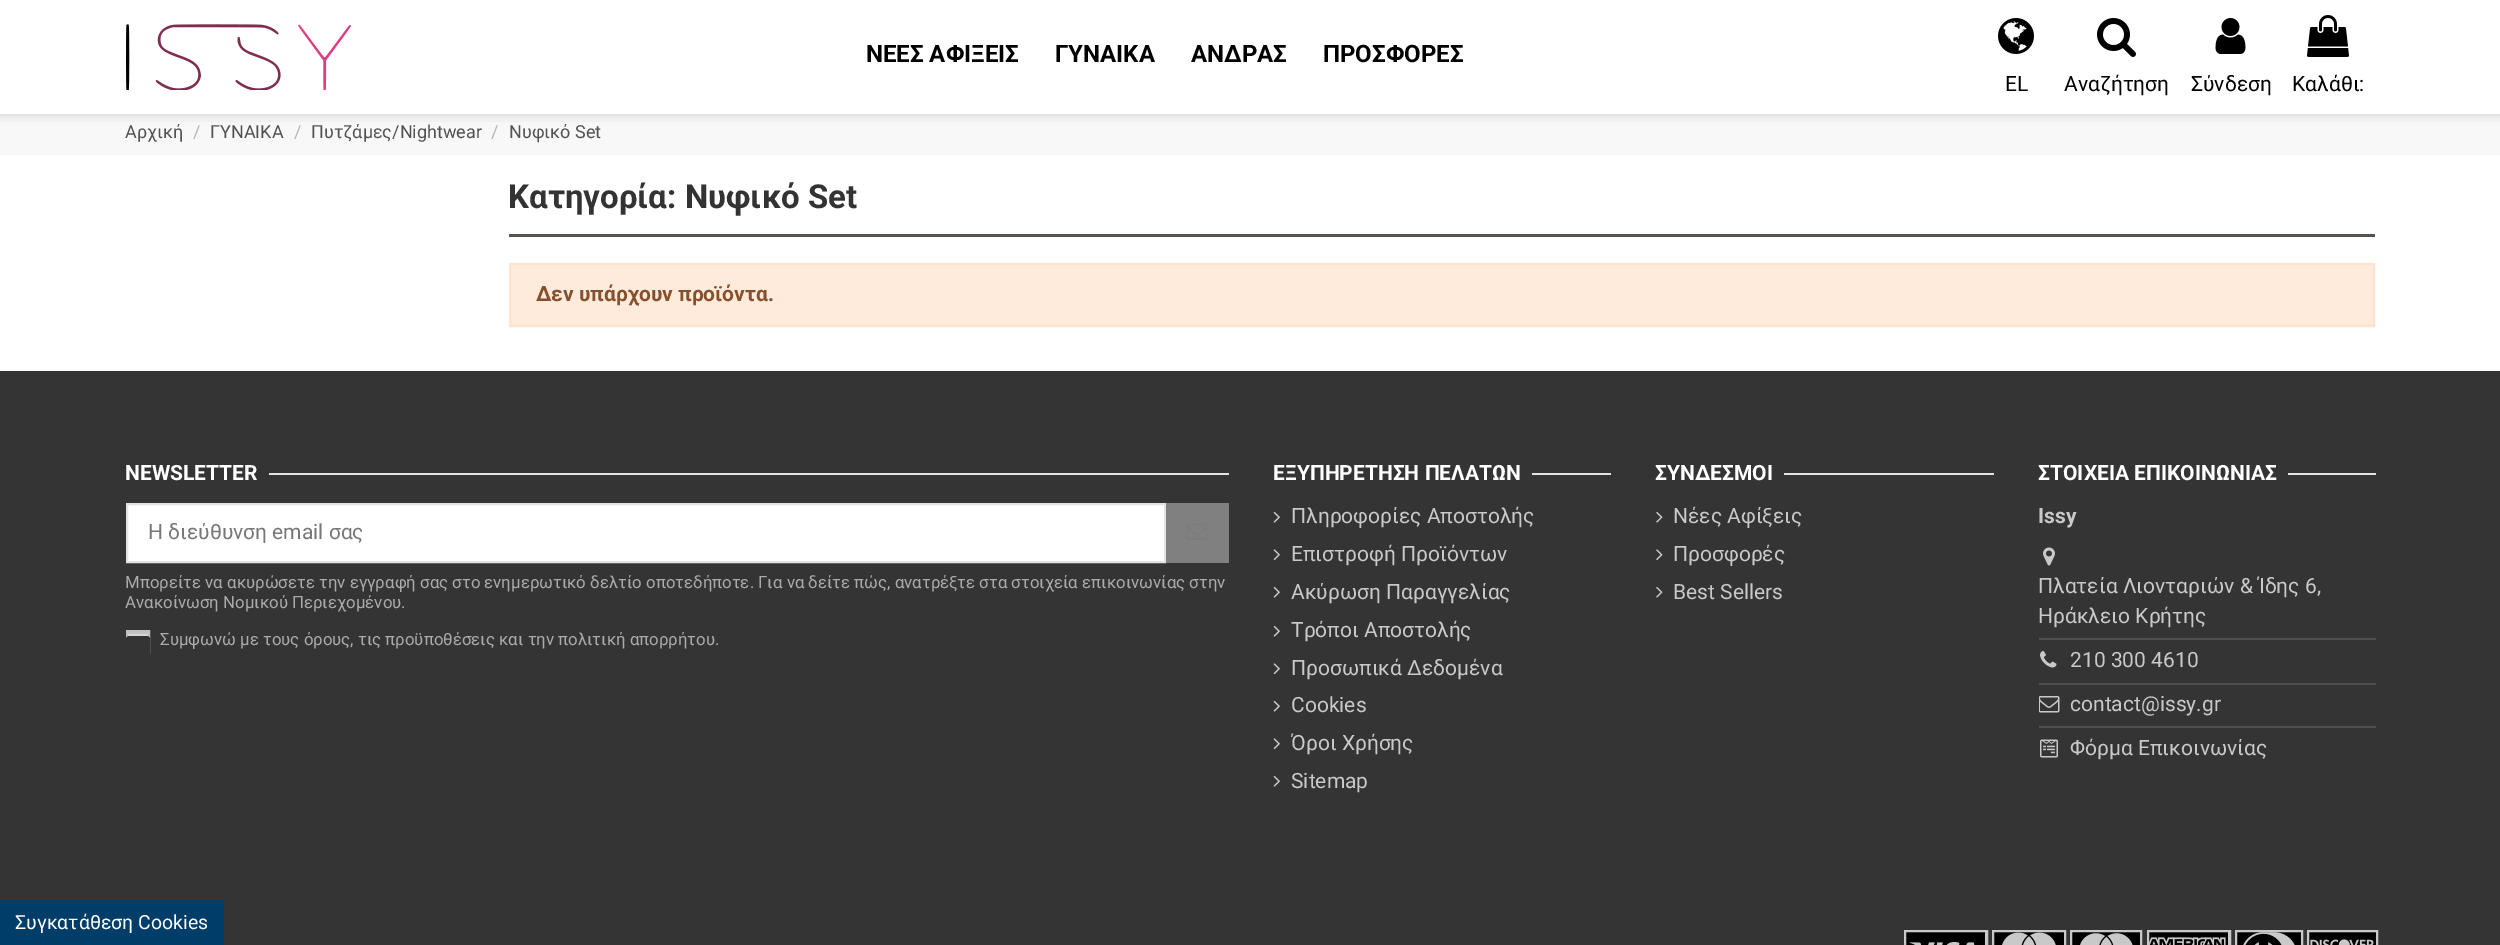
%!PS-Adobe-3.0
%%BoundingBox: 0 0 2500 945
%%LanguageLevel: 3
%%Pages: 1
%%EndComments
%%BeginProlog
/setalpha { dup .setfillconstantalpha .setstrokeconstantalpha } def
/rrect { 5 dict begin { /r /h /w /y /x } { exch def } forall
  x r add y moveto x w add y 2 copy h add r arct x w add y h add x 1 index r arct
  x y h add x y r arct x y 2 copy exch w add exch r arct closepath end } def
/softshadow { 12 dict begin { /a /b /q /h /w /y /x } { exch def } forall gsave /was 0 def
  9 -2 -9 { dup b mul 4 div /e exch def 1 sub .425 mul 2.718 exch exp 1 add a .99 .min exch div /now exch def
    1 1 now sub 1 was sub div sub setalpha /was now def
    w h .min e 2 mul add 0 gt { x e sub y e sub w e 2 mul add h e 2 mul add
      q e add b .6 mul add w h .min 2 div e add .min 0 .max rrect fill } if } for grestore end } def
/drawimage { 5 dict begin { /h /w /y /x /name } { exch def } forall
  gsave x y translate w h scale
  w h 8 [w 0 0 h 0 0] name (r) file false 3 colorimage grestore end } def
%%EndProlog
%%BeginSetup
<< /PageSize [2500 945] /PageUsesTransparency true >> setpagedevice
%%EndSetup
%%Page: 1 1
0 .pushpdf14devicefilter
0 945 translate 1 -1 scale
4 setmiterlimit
1 setgray
0 0 2500 945 rectfill
0.973 setgray
0 112 2500 43 rectfill
0.239 0.224 0.224 setrgbcolor
0 -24 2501 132 0 8 0.17 softshadow
0.973 setgray
0 0 2500 110 rectfill
0.89 setgray
0 110 2500 2 rectfill
gsave
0 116 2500 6 rectclip
0.239 0.224 0.224 setrgbcolor
0 -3 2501 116 0 8 0.17 softshadow
grestore
0.95 setalpha
1 setgray
0 0 2500 114 rectfill
1 setalpha
0.89 setgray
0 114 2500 2 rectfill
(images/1.raw) 126 24 225 66 drawimage
(images/2.raw) 1998 18 36 36 drawimage
(images/3.raw) 2097 18 39 39 drawimage
(images/4.raw) 2215 18 31 36 drawimage
(images/5.raw) 2307 15 42 42 drawimage
0.349 0.314 0.314 setrgbcolor
509 234 1866 3 rectfill
1 0.922 0.863 setrgbcolor
newpath 510 264 moveto 2374 264 lineto 2374 326 lineto 510 326 lineto closepath gsave fill grestore
1 0.89 0.812 setrgbcolor
2 setlinewidth
stroke
0.204 setgray
0 371 2500 574 rectfill
0.89 setgray
269 473 960 2 rectfill
1 setgray
newpath 127 504 moveto 1165 504 lineto 1165 562 lineto 127 562 lineto closepath gsave fill grestore
0.89 setgray
stroke
0.502 setgray
1166 503 63 60 rectfill
(images/6.raw) 1187 524 20 16 drawimage
0.839 setgray
128 634 20 3 rectfill
0.769 setgray
128 632 21 2 rectfill
0.753 setgray
127 631 22 22 rectstroke
0.204 setgray
127 637 22 22 2 rrect gsave fill grestore
stroke
0.89 setgray
1532 473 79 2 rectfill
(images/7.raw) 1273 511 7 12 drawimage
(images/8.raw) 1273 549 7 12 drawimage
(images/7.raw) 1273 586 7 12 drawimage
(images/7.raw) 1273 625 7 12 drawimage
(images/8.raw) 1273 663 7 12 drawimage
(images/7.raw) 1273 700 7 12 drawimage
(images/8.raw) 1273 738 7 12 drawimage
(images/7.raw) 1273 775 7 12 drawimage
1784 473 210 2 rectfill
(images/9.raw) 1656 511 7 12 drawimage
(images/10.raw) 1656 549 7 12 drawimage
(images/9.raw) 1656 586 7 12 drawimage
2288 473 88 2 rectfill
(images/11.raw) 2043 547 12 19 drawimage
0.31 setgray
2039 638 337 2 rectfill
(images/12.raw) 2040 651 17 17 drawimage
2039 683 337 2 rectfill
(images/13.raw) 2039 696 21 17 drawimage
2039 726 337 2 rectfill
(images/14.raw) 2040 739 18 19 drawimage
0.788 setgray
1909 932 77 13 rectfill
(images/15.raw) 1906 932 79 13 drawimage
1905 931 82 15 rectstroke
2002 932 54 13 rectfill
(images/16.raw) 1994 932 70 13 drawimage
1993 931 72 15 rectstroke
2080 933 53 12 rectfill
(images/17.raw) 2072 932 68 13 drawimage
2071 931 70 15 rectstroke
2149 932 80 13 rectfill
(images/18.raw) 2149 932 79 13 drawimage
2148 931 82 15 rectstroke
2243 932 58 13 rectfill
(images/19.raw) 2237 932 64 13 drawimage
2236 931 66 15 rectstroke
2310 939 64 6 rectfill
(images/20.raw) 2309 932 67 13 drawimage
2308 931 69 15 rectstroke
0 0.239 0.408 setrgbcolor
0 900 224 45 rectfill
/Roboto-Bold [24 0 0 -24 0 0] selectfont
0 setgray
866 62 moveto (ΝΕΕΣ ΑΦΙΞΕΙΣ) show
1055 62 moveto (ΓΥΝΑΙΚΑ) show
1191 62 moveto (ΑΝΔΡΑΣ) show
1323 62 moveto (ΠΡΟΣΦΟΡΕΣ) show
/Roboto-Regular [21 0 0 -21 0 0] selectfont
2005 91 moveto (EL) show
2064 91 moveto (Αναζήτηση) show
2191 91 moveto (Σύνδεση) show
2292 91 moveto (Καλάθι:) show
/Roboto-Regular [18 0 0 -18 0 0] selectfont
0.322 setgray
125 138 moveto (Αρχική) show
0.714 setgray
193 138 moveto (/) show
0.322 setgray
210 138 moveto (ΓΥΝΑΙΚΑ) show
0.714 setgray
294 138 moveto (/) show
0.322 setgray
311 138 moveto (Πυτζάμες/Nightwear) show
0.714 setgray
491 138 moveto (/) show
0.322 setgray
509 138 moveto (Νυφικό Set) show
/Roboto-Bold [33 0 0 -33 0 0] selectfont
0.2 setgray
508 208 moveto (Κατηγορία: Νυφικό Set) show
/Roboto-Bold [21 0 0 -21 0 0] selectfont
0.522 0.314 0.169 setrgbcolor
536 301 moveto (Δεν υπάρχουν προϊόντα.) show
1 setgray
125 480 moveto (NEWSLETTER) show
gsave
149 519 994 24 rectclip
/Roboto-Regular [21 0 0 -21 0 0] selectfont
0.467 setgray
148 539 moveto (Η διεύθυνση email σας) show
grestore
/Roboto-Regular [16.8 0 0 -16.8 0 0] selectfont
0.671 setgray
125 588 moveto (Μπορείτε να ακυρώσετε την εγγραφή σας στο ενημερωτικό δελτίο οποτεδήποτε. Για να δείτε πώς, ανατρέξτε στα στοιχεία επικοινωνίας στην) show
125 608 moveto (Ανακοίνωση Νομικού Περιεχομένου.) show
160 645 moveto (Συμφωνώ με τους όρους, τις προϋποθέσεις και την πολιτική απορρήτου.) show
/Roboto-Bold [21 0 0 -21 0 0] selectfont
1 setgray
1273 480 moveto (ΕΞΥΠΗΡΕΤΗΣΗ ΠΕΛΑΤΩΝ) show
/Roboto-Regular [21 0 0 -21 0 0] selectfont
0.788 setgray
1291 523 moveto (Πληροφορίες Αποστολής) show
1291 561 moveto (Επιστροφή Προϊόντων) show
1291 599 moveto (Ακύρωση Παραγγελίας) show
1291 637 moveto (Τρόποι Αποστολής) show
1291 675 moveto (Προσωπικά Δεδομένα) show
1291 712 moveto (Cookies) show
1291 750 moveto (Όροι Χρήσης) show
1291 788 moveto (Sitemap) show
/Roboto-Bold [21 0 0 -21 0 0] selectfont
1 setgray
1655 480 moveto (ΣΥΝΔΕΣΜΟΙ) show
/Roboto-Regular [21 0 0 -21 0 0] selectfont
0.788 setgray
1673 523 moveto (Νέες Αφίξεις) show
1673 561 moveto (Προσφορές) show
1673 599 moveto (Best Sellers) show
/Roboto-Bold [21 0 0 -21 0 0] selectfont
1 setgray
2038 480 moveto (ΣΤΟΙΧΕΙΑ ΕΠΙΚΟΙΝΩΝΙΑΣ) show
0.788 setgray
2038 523 moveto (Issy) show
/Roboto-Regular [21 0 0 -21 0 0] selectfont
2038 593 moveto (Πλατεία Λιονταριών & Ίδης 6,) show
2038 623 moveto (Ηράκλειο Κρήτης) show
2070 667 moveto (210 300 4610) show
2070 711 moveto (contact@issy.gr) show
2070 755 moveto (Φόρμα Επικοινωνίας) show
/Roboto-Regular [19.5 0 0 -19.5 0 0] selectfont
1 setgray
15 929 moveto (Συγκατάθεση Cookies) show
.poppdf14devicefilter showpage
%%EOF
